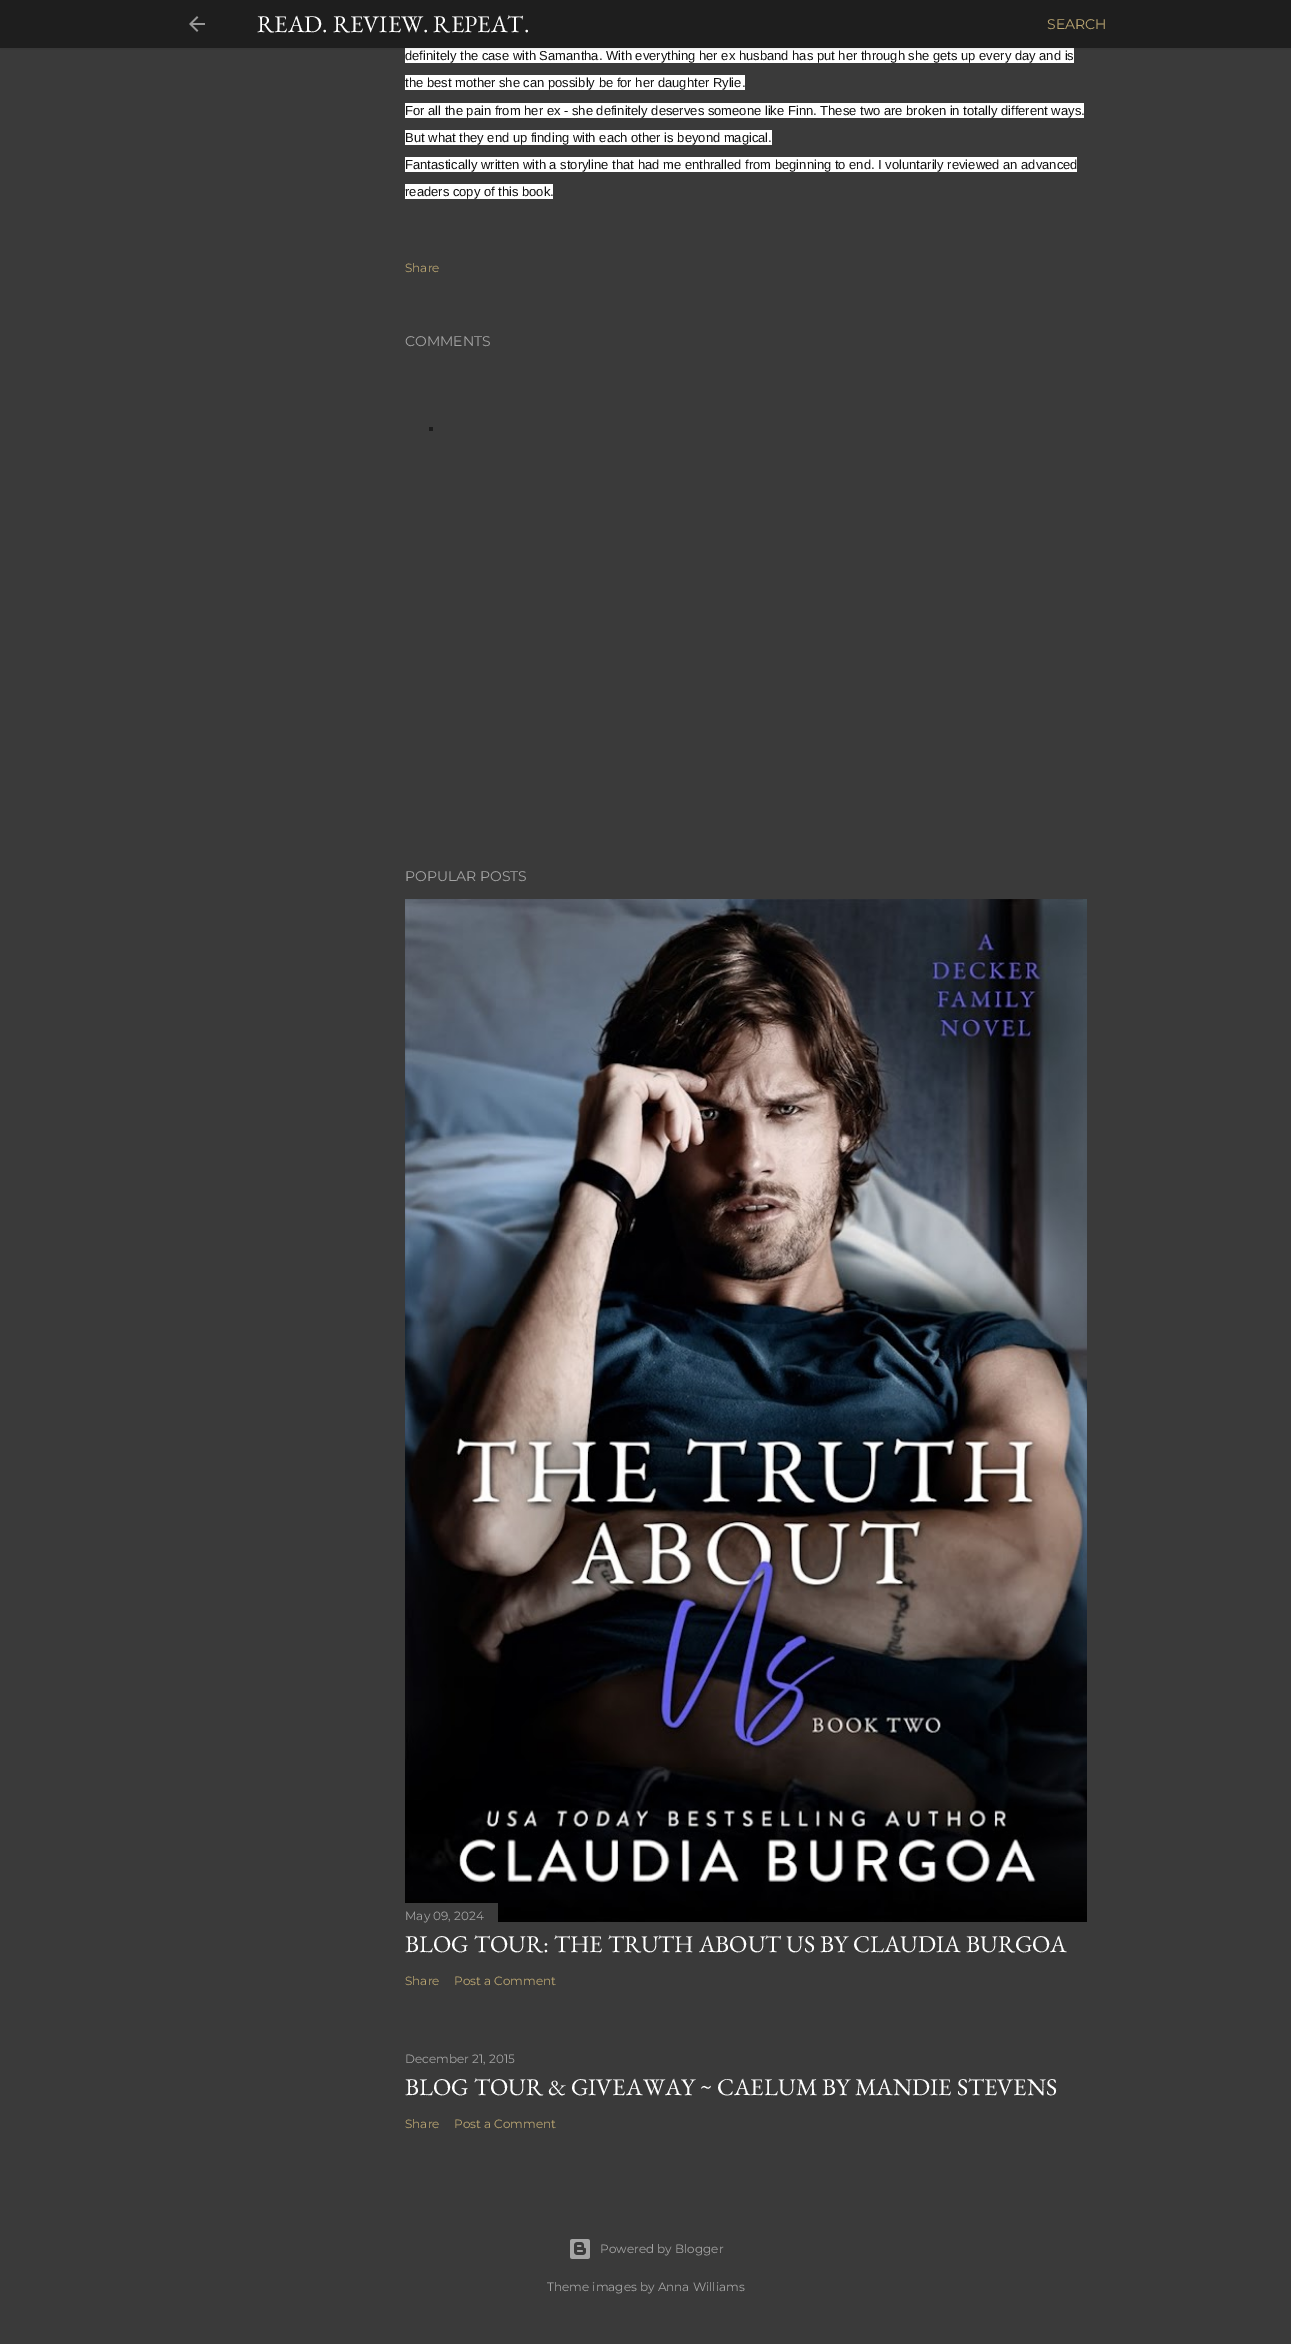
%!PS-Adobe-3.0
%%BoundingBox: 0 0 1291 2344
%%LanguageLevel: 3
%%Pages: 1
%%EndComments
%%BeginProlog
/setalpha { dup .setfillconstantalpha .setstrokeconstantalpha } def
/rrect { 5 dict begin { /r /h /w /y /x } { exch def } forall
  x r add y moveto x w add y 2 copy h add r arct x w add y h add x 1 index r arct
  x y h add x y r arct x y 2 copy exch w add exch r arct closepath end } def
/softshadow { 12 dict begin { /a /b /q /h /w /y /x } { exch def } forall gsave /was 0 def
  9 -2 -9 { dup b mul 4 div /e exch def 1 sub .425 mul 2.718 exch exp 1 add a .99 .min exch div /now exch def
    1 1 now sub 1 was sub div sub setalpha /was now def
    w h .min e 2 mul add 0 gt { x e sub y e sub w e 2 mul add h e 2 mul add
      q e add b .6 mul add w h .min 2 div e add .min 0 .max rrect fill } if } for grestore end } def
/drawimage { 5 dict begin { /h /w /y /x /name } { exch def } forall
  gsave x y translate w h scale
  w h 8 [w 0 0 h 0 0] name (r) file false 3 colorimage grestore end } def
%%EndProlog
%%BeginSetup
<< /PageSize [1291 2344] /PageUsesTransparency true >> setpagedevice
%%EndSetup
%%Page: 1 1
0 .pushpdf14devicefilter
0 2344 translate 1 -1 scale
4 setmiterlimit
0.227 setgray
0 0 1291 2344 rectfill
1 setgray
405 48 669 15 rectfill
0 setgray
0 1 1291 48 0 1.5 0.1 softshadow
0.118 setgray
0 0 1291 48 rectfill
(images/1.raw) 189 16 16 16 drawimage
1 setgray
405 75 340 15 rectfill
405 103 679 15 rectfill
405 130 367 15 rectfill
405 157 672 15 rectfill
405 184 148 15 rectfill
(images/2.raw) 405 899 682 1023 drawimage
0.227 setgray
405 1903 93 19 rectfill
(images/3.raw) 570 2239 20 20 drawimage
0.106 setgray
429 427 4 4 rectfill
/EBGaramond-Regular [24 0 0 -24 0 0] selectfont
1 setgray
257 32 moveto (READ. REVIEW. REPEAT.) show
/Montserrat-Regular [14 0 0 -14 0 0] selectfont
0.737 0.655 0.447 setrgbcolor
1047 29 moveto (SEARCH) show
/LiberationSans-Regular [13 0 0 -13 0 0] selectfont
0.067 setgray
405 60 moveto (definitely the case with Samantha. With everything her ex husband has put her through she gets up every day and is) show
405 87 moveto (the best mother she can possibly be for her daughter Rylie.) show
405 115 moveto (For all the pain from her ex - she definitely deserves someone like Finn. These two are broken in totally different ways.) show
405 142 moveto (But what they end up finding with each other is beyond magical.) show
405 169 moveto (Fantastically written with a storyline that had me enthralled from beginning to end. I voluntarily reviewed an advanced) show
405 196 moveto (readers copy of this book.) show
/Montserrat-Regular [12 0 0 -12 0 0] selectfont
0.737 0.655 0.447 setrgbcolor
405 272 moveto (Share) show
/Montserrat-Regular [14 0 0 -14 0 0] selectfont
0.643 setgray
405 346 moveto (COMMENTS) show
405 881 moveto (POPULAR POSTS) show
/Montserrat-Regular [12 0 0 -12 0 0] selectfont
405 1920 moveto (May 09, 2024) show
/EBGaramond-Regular [24 0 0 -24 0 0] selectfont
1 setgray
405 1952 moveto (BLOG TOUR: THE TRUTH ABOUT US BY CLAUDIA BURGOA) show
/Montserrat-Regular [12 0 0 -12 0 0] selectfont
0.737 0.655 0.447 setrgbcolor
405 1985 moveto (Share) show
454 1985 moveto (Post a Comment) show
0.643 setgray
405 2063 moveto (December 21, 2015) show
/EBGaramond-Regular [24 0 0 -24 0 0] selectfont
1 setgray
405 2095 moveto (BLOG TOUR & GIVEAWAY ~ CAELUM BY MANDIE STEVENS) show
/Montserrat-Regular [12 0 0 -12 0 0] selectfont
0.737 0.655 0.447 setrgbcolor
405 2128 moveto (Share) show
454 2128 moveto (Post a Comment) show
0.643 setgray
600 2253 moveto (Powered by Blogger) show
547 2291 moveto (Theme images by Anna Williams) show
.poppdf14devicefilter showpage
%%EOF
